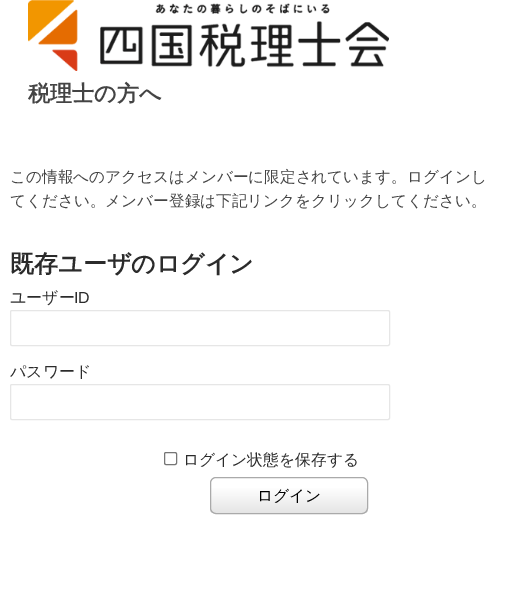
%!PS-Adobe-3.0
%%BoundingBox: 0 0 507 589
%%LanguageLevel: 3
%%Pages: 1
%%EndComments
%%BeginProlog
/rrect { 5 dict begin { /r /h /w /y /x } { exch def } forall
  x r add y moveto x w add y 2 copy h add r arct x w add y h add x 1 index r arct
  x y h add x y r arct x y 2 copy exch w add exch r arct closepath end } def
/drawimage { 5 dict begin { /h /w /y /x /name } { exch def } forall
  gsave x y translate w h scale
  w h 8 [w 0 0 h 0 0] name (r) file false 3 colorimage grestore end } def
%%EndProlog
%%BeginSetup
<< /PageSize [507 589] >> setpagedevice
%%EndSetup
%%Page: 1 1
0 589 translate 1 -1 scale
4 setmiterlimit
1 setgray
0 0 507 589 rectfill
(images/1.raw) 28 0 361 71 drawimage
0.902 setgray
10.5 310.5 379 35 1.5 rrect stroke
10.5 384.5 379 35 1.5 rrect stroke
0.463 setgray
164.5 452.5 12 12 1.5 rrect stroke
gsave
210 477 158 37 6 rrect clip newpath
gsave newpath 210 478 moveto 368 478 lineto 368 513 lineto 210 513 lineto closepath clip newpath
<< /ShadingType 2 /ColorSpace /DeviceRGB /Coords [289 478 289 513] /Extend [true true] /Function << /FunctionType 3 /Domain [0 1] /Functions [<< /FunctionType 2 /Domain [0 1] /C0 [1 1 1] /C1 [1 1 1] /N 1 >> << /FunctionType 2 /Domain [0 1] /C0 [1 1 1] /C1 [0.898 0.898 0.898] /N 1 >>] /Bounds [0.26] /Encode [0 1 0 1] >> >> shfill grestore
grestore
0.667 setgray
210.5 477.5 157 36 5.5 rrect stroke
/WenQuanYiZenHei-Bold [22 0 0 -22 0 0] selectfont
0.267 setgray
28 101 moveto (税理士の方へ) show
/WenQuanYiZenHei-Medium [15.6 0 0 -15.6 0 0] selectfont
10 182 moveto (この情報へのアクセスはメンバーに限定されています。ログインし) show
10 206 moveto (てください。メンバー登録は下記リンクをクリックしてください。) show
/WenQuanYiZenHei-Bold [24 0 0 -24 0 0] selectfont
0.169 setgray
10 272 moveto (既存ユーザのログイン) show
/WenQuanYiZenHei-Medium [16 0 0 -16 0 0] selectfont
10 303 moveto (ユーザー) show
/LiberationSans-Regular [16 0 0 -16 0 0] selectfont
74 303 moveto (ID) show
/WenQuanYiZenHei-Medium [16 0 0 -16 0 0] selectfont
10 377 moveto (パスワード) show
/WenQuanYiZenHei-Medium [15.75 0 0 -15.75 0 0] selectfont
183 465 moveto (ログイン状態を保存する) show
0 setgray
257 501 moveto (ログイン) show
showpage
%%EOF
